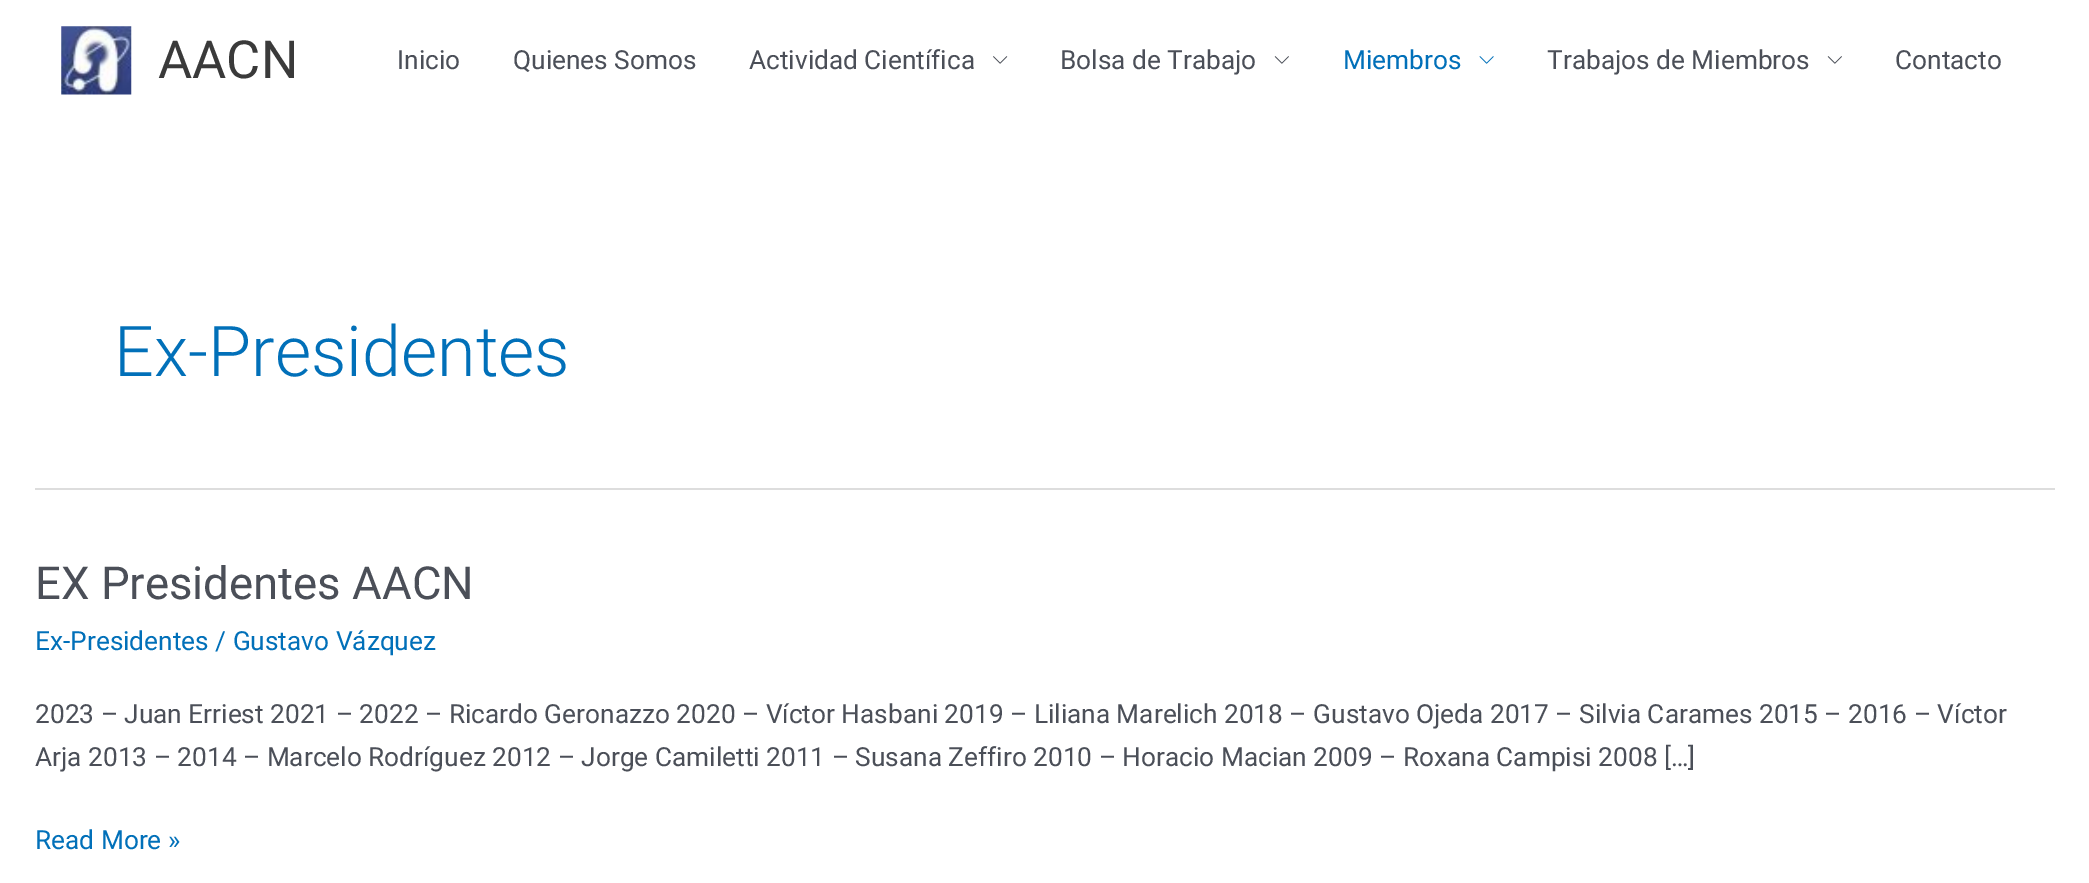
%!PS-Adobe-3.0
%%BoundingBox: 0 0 2089 883
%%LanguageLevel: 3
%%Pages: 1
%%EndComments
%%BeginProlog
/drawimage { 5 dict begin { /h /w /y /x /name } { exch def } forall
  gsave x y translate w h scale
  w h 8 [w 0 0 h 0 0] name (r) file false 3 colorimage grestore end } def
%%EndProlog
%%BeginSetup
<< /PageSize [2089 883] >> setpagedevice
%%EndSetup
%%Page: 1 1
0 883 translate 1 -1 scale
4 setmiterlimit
1 setgray
0 0 2089 883 rectfill
(images/1.raw) 61 26 71 69 drawimage
(images/2.raw) 993 56 15 8 drawimage
(images/3.raw) 1274 56 15 8 drawimage
(images/4.raw) 1479 56 15 8 drawimage
(images/3.raw) 1827 56 15 8 drawimage
0.867 setgray
35 488 2020 2 rectfill
/Roboto-Regular [52.5 0 0 -52.5 0 0] selectfont
0.227 setgray
158 78 moveto (AACN) show
/Roboto-Regular [26.25 0 0 -26.25 0 0] selectfont
0.294 0.31 0.345 setrgbcolor
397 69 moveto (Inicio) show
513 69 moveto (Quienes Somos) show
749 69 moveto (Actividad Científica) show
1060 69 moveto (Bolsa de Trabajo) show
0.004 0.439 0.725 setrgbcolor
1343 69 moveto (Miembros) show
0.294 0.31 0.345 setrgbcolor
1547 69 moveto (Trabajos de Miembros) show
1895 69 moveto (Contacto) show
/Roboto-Light [70 0 0 -70 0 0] selectfont
0.004 0.439 0.725 setrgbcolor
114 376 moveto (Ex-Presidentes) show
/Roboto-Regular [45.5 0 0 -45.5 0 0] selectfont
0.294 0.31 0.345 setrgbcolor
35 599 moveto (EX Presidentes AACN) show
/Roboto-Regular [26.25 0 0 -26.25 0 0] selectfont
0.004 0.439 0.725 setrgbcolor
35 650 moveto (Ex-Presidentes / Gustavo Vázquez) show
0.294 0.31 0.345 setrgbcolor
35 723 moveto (2023 – Juan Erriest 2021 – 2022 – Ricardo Geronazzo 2020 – Víctor Hasbani 2019 – Liliana Marelich 2018 – Gustavo Ojeda 2017 – Silvia Carames 2015 – 2016 – Víctor) show
35 766 moveto (Arja 2013 – 2014 – Marcelo Rodríguez 2012 – Jorge Camiletti 2011 – Susana Zeffiro 2010 – Horacio Macian 2009 – Roxana Campisi 2008 […]) show
0.004 0.439 0.725 setrgbcolor
35 849 moveto (Read More ») show
showpage
%%EOF
